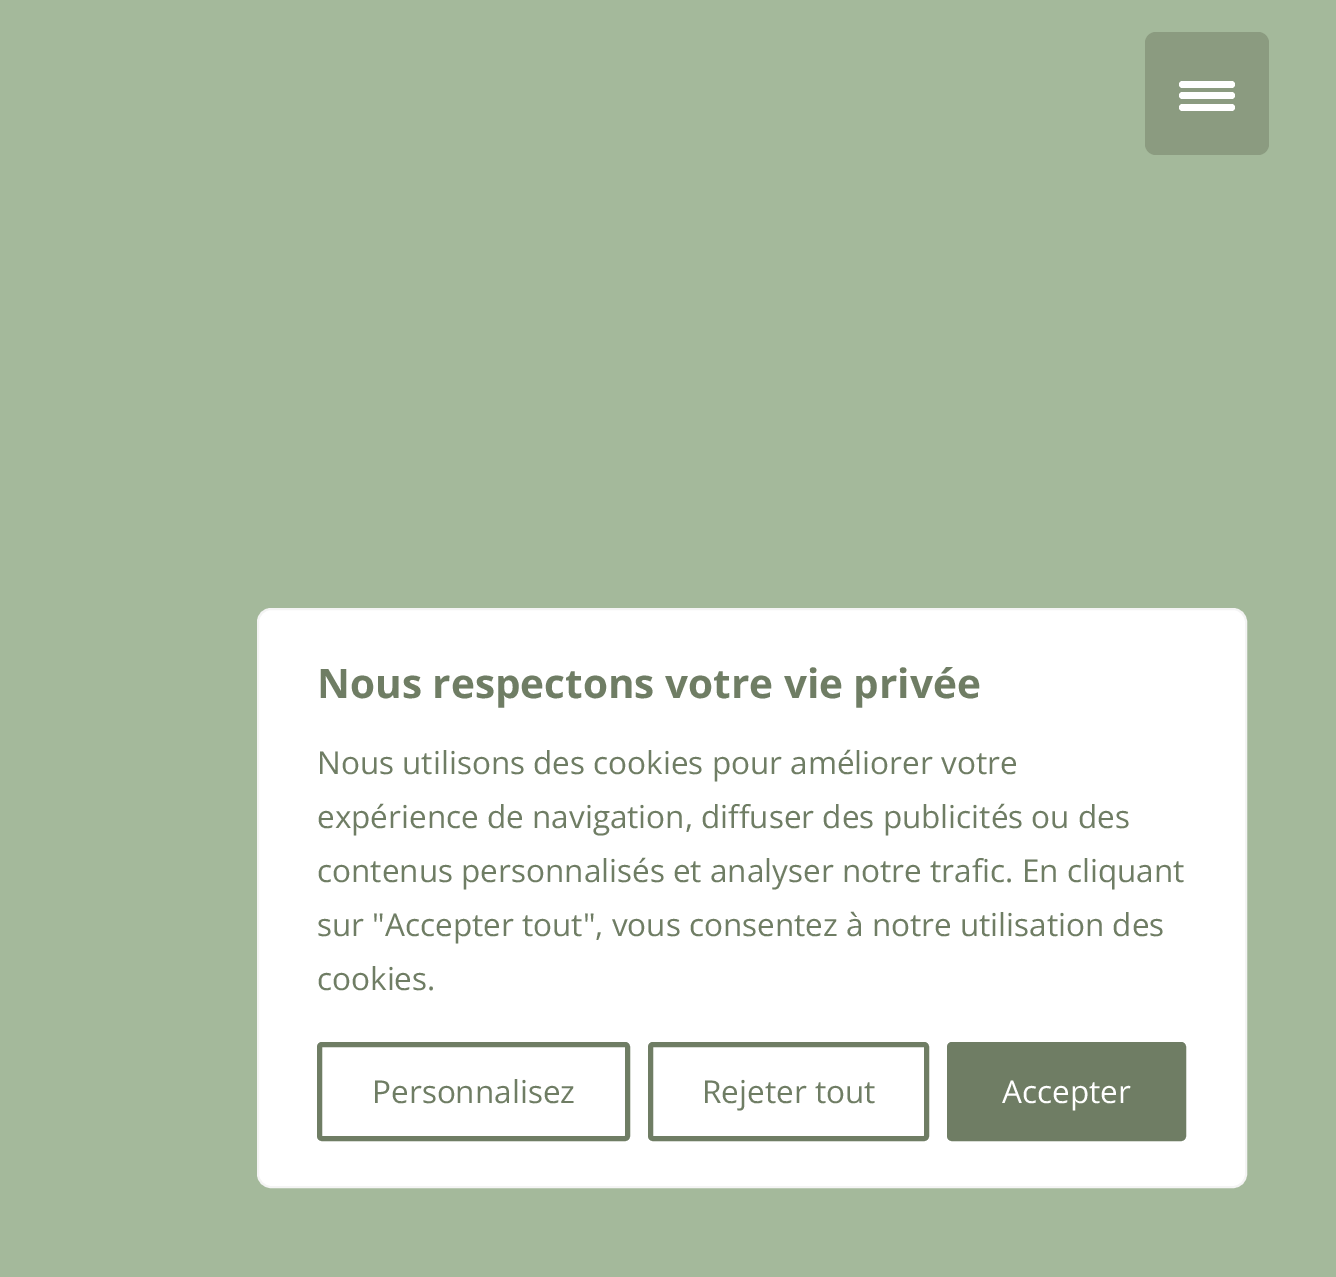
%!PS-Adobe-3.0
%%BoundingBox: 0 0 1336 1277
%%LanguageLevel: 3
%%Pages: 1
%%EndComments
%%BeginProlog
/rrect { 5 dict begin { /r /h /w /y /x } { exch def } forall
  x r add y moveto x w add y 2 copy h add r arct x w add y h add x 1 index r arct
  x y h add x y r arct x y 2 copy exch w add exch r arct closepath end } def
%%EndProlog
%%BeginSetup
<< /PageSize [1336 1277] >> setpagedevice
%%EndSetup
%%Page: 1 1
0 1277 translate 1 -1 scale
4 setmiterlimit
0.643 0.725 0.608 setrgbcolor
0 0 1336 1277 rectfill
0.545 0.608 0.502 setrgbcolor
1145 32 124 123 11 rrect fill
1 setgray
1179 92 56 7 3.5 rrect fill
1179 81 56 7 3.5 rrect fill
1179 104 56 7 3.5 rrect fill
258 609 988 578 13 rrect gsave fill grestore
0.957 setgray
2 setlinewidth
stroke
0.435 0.49 0.392 setrgbcolor
5 setlinewidth
319.5 1044.5 308 94 2.5 rrect stroke
650.5 1044.5 276 94 2.5 rrect stroke
949.5 1044.5 234 94 2.5 rrect gsave fill grestore
stroke
/OpenSans-Bold [40.5 0 0 -40.5 0 0] selectfont
317 698 moveto (Nous respectons votre vie privée) show
/OpenSans-Regular [31.5 0 0 -31.5 0 0] selectfont
317 774 moveto (Nous utilisons des cookies pour améliorer votre) show
317 828 moveto (expérience de navigation, diffuser des publicités ou des) show
317 882 moveto (contenus personnalisés et analyser notre trafic. En cliquant) show
317 936 moveto (sur "Accepter tout", vous consentez à notre utilisation des) show
317 990 moveto (cookies.) show
372 1103 moveto (Personnalisez) show
702 1103 moveto (Rejeter tout) show
1 setgray
1002 1103 moveto (Accepter) show
showpage
%%EOF
